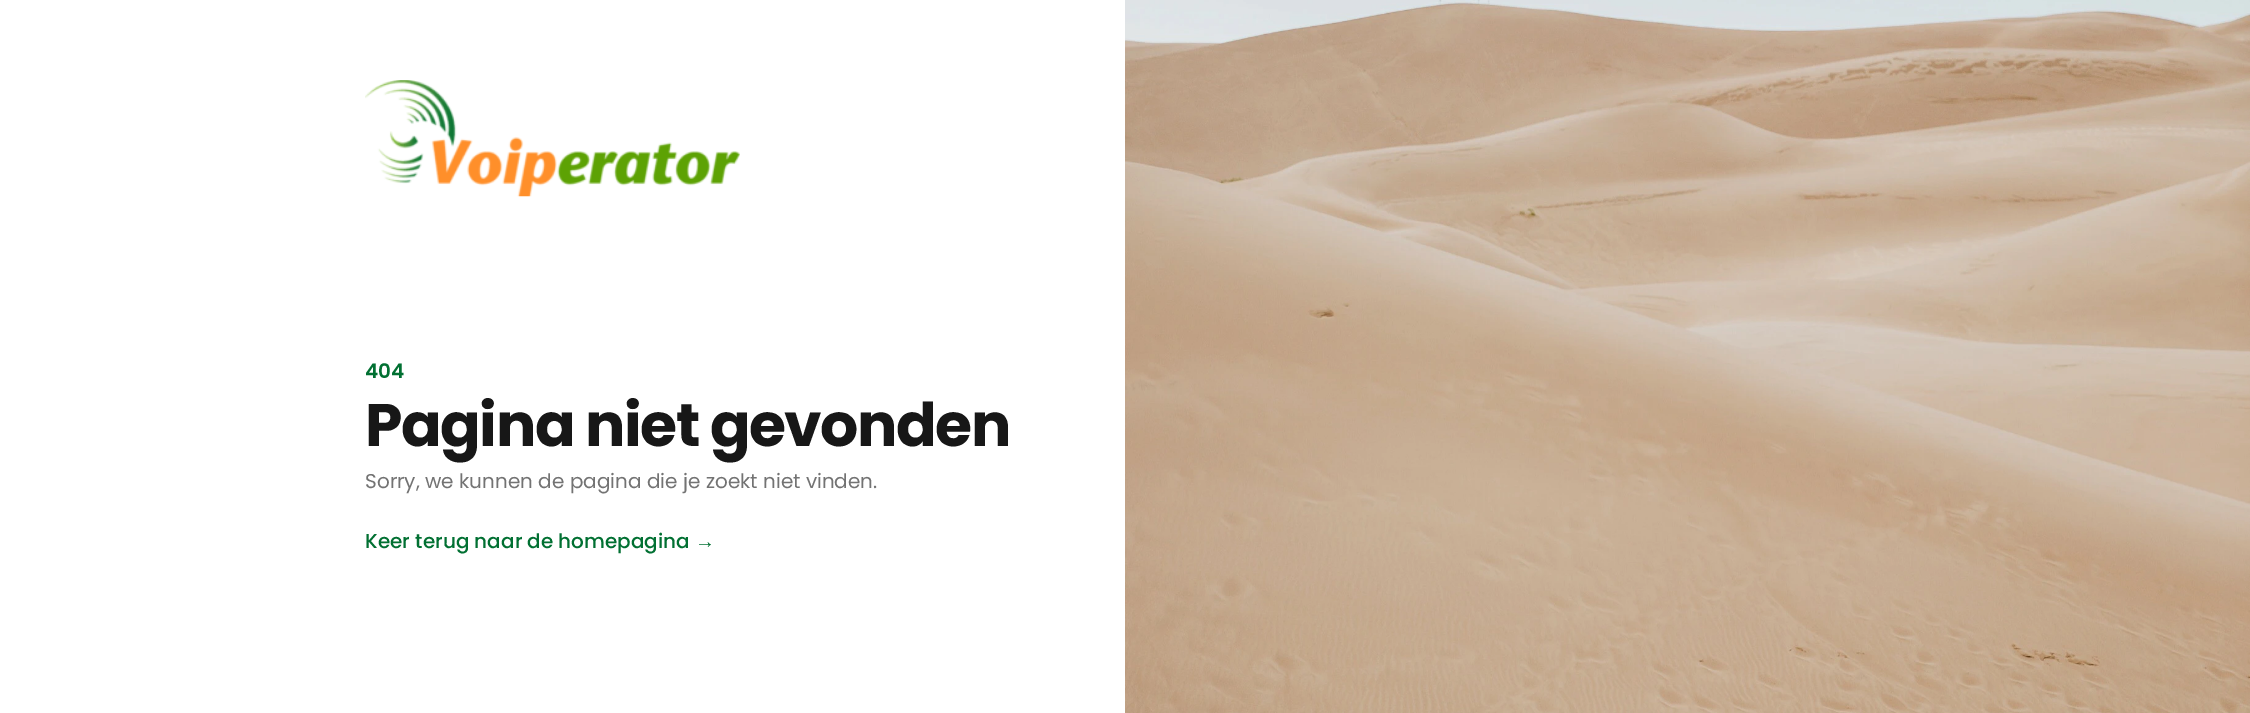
%!PS-Adobe-3.0
%%BoundingBox: 0 0 2250 713
%%LanguageLevel: 3
%%Pages: 1
%%EndComments
%%BeginProlog
/drawimage { 5 dict begin { /h /w /y /x /name } { exch def } forall
  gsave x y translate w h scale
  w h 8 [w 0 0 h 0 0] name (r) file false 3 colorimage grestore end } def
%%EndProlog
%%BeginSetup
<< /PageSize [2250 713] >> setpagedevice
%%EndSetup
%%Page: 1 1
0 713 translate 1 -1 scale
4 setmiterlimit
1 setgray
0 0 2250 713 rectfill
(images/1.raw) 365 80 375 117 drawimage
(images/2.raw) 1125 0 1125 713 drawimage
/Poppins-SemiBold [20 0 0 -20 0 0] selectfont
0.004 0.439 0.196 setrgbcolor
365 378 moveto (404) show
/Poppins-Bold [60 0 0 -60 0 0] selectfont
0.09 setgray
365 446 moveto -1.5 0 (Pagina niet gevonden) ashow
/Poppins-Regular [20 0 0 -20 0 0] selectfont
0.451 setgray
365 488 moveto (Sorry, we kunnen de pagina die je zoekt niet vinden.) show
/Poppins-Medium [20 0 0 -20 0 0] selectfont
0.004 0.439 0.196 setrgbcolor
365 548 moveto (Keer terug naar de homepagina) show
/LiberationSans-Regular [20 0 0 -20 0 0] selectfont
695 548 moveto (→) show
showpage
%%EOF
